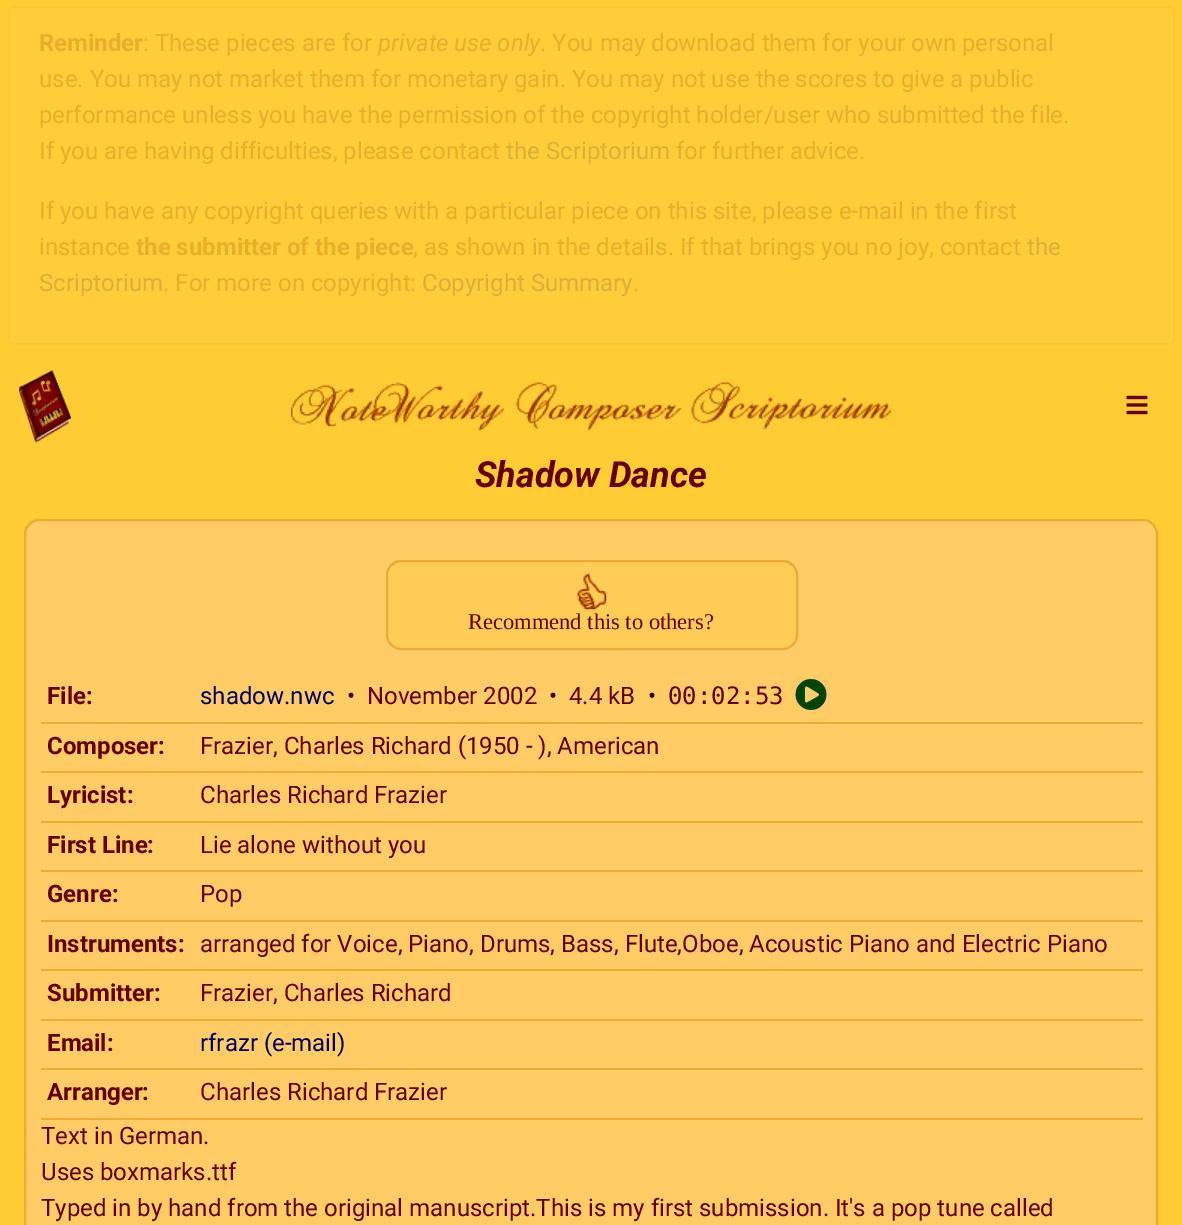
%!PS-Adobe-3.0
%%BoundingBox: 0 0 1182 1225
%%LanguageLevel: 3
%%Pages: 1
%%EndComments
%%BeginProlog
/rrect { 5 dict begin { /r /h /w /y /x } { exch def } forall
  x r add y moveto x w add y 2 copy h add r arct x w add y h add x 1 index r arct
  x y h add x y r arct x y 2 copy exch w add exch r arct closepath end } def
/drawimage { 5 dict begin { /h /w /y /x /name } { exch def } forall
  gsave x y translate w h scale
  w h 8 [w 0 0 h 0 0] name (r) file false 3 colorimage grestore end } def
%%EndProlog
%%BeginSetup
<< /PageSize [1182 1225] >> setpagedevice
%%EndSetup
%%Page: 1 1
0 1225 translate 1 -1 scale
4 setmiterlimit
1 0.8 0.2 setrgbcolor
0 0 1182 1225 rectfill
1 0.804 0.227 setrgbcolor
9 7 1165 337 5 rrect gsave fill grestore
0.992 0.78 0.2 setrgbcolor
2 setlinewidth
stroke
(images/1.raw) 19 370 52 73 drawimage
(images/2.raw) 291 382 600 49 drawimage
(images/3.raw) 1126 395 22 20 drawimage
1 0.8 0.4 setrgbcolor
25 520 1132 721 14 rrect gsave fill grestore
0.933 0.667 0.2 setrgbcolor
stroke
1 0.8 0.333 setrgbcolor
387 561 410 88 14 rrect gsave fill grestore
0.933 0.667 0.2 setrgbcolor
stroke
(images/4.raw) 577 573 30 37 drawimage
41 722 1102 2 rectfill
(images/5.raw) 795 679 32 31 drawimage
41 771 1102 2 rectfill
41 821 1102 2 rectfill
41 870 1102 2 rectfill
41 920 1102 2 rectfill
41 969 1102 2 rectfill
41 1019 1102 2 rectfill
41 1068 1102 2 rectfill
41 1118 1102 2 rectfill
/Roboto-Bold [24 0 0 -24 0 0] selectfont
0.914 0.686 0.173 setrgbcolor
39 51 moveto (Reminder) show
/Roboto-Regular [24 0 0 -24 0 0] selectfont
143 51 moveto (: These pieces are for) show
/Roboto-Italic [24 0 0 -24 0 0] selectfont
378 51 moveto (private use only) show
/Roboto-Regular [24 0 0 -24 0 0] selectfont
540 51 moveto (. You may download them for your own personal) show
39 87 moveto (use. You may not market them for monetary gain. You may not use the scores to give a public) show
39 123 moveto (performance unless you have the permission of the copyright holder/user who submitted the file.) show
39 159 moveto (If you are having difficulties, please contact) show
0.859 0.686 0.227 setrgbcolor
506 159 moveto (the Scriptorium) show
0.914 0.686 0.173 setrgbcolor
676 159 moveto (for further advice.) show
39 219 moveto (If you have any copyright queries with a particular piece on this site, please e-mail in the first) show
39 255 moveto (instance) show
/Roboto-Bold [24 0 0 -24 0 0] selectfont
136 255 moveto (the submitter of the piece) show
/Roboto-Regular [24 0 0 -24 0 0] selectfont
413 255 moveto (, as shown in the details. If that brings you no joy, contact) show
0.859 0.686 0.227 setrgbcolor
1027 255 moveto (the) show
39 291 moveto (Scriptorium) show
0.914 0.686 0.173 setrgbcolor
163 291 moveto (. For more on copyright:) show
0.859 0.686 0.227 setrgbcolor
422 291 moveto (Copyright Summary) show
0.914 0.686 0.173 setrgbcolor
633 291 moveto (.) show
/Roboto-BoldItalic [36 0 0 -36 0 0] selectfont
0.4 0 0 setrgbcolor
475 487 moveto (Shadow Dance) show
/LiberationSerif-Regular [22.5 0 0 -22.5 0 0] selectfont
468 629 moveto (Recommend this to others?) show
/Roboto-Bold [24 0 0 -24 0 0] selectfont
47 704 moveto (File:) show
/Roboto-Regular [24 0 0 -24 0 0] selectfont
0 0 0.4 setrgbcolor
200 704 moveto (shadow.nwc) show
0.2 0 0 setrgbcolor
347 704 moveto (•) show
0.4 0 0 setrgbcolor
367 704 moveto (November 2002) show
0.2 0 0 setrgbcolor
549 704 moveto (•) show
0.4 0 0 setrgbcolor
569 704 moveto (4.4 kB) show
0.2 0 0 setrgbcolor
648 704 moveto (•) show
/DejaVuSansMono-Regular [24 0 0 -24 0 0] selectfont
0.4 0 0 setrgbcolor
668 704 moveto (00:02:53) show
/Roboto-Bold [24 0 0 -24 0 0] selectfont
47 754 moveto (Composer:) show
/Roboto-Regular [24 0 0 -24 0 0] selectfont
200 754 moveto (Frazier, Charles Richard \(1950 - \), American) show
/Roboto-Bold [24 0 0 -24 0 0] selectfont
47 803 moveto (Lyricist:) show
/Roboto-Regular [24 0 0 -24 0 0] selectfont
200 803 moveto (Charles Richard Frazier) show
/Roboto-Bold [24 0 0 -24 0 0] selectfont
47 853 moveto (First Line:) show
/Roboto-Regular [24 0 0 -24 0 0] selectfont
200 853 moveto (Lie alone without you) show
/Roboto-Bold [24 0 0 -24 0 0] selectfont
47 902 moveto (Genre:) show
/Roboto-Regular [24 0 0 -24 0 0] selectfont
200 902 moveto (Pop) show
/Roboto-Bold [24 0 0 -24 0 0] selectfont
47 952 moveto (Instruments:) show
/Roboto-Regular [24 0 0 -24 0 0] selectfont
200 952 moveto (arranged for Voice, Piano, Drums, Bass, Flute,Oboe, Acoustic Piano and Electric Piano) show
/Roboto-Bold [24 0 0 -24 0 0] selectfont
47 1001 moveto (Submitter:) show
/Roboto-Regular [24 0 0 -24 0 0] selectfont
200 1001 moveto (Frazier, Charles Richard) show
/Roboto-Bold [24 0 0 -24 0 0] selectfont
47 1051 moveto (Email:) show
/Roboto-Regular [24 0 0 -24 0 0] selectfont
0 0 0.4 setrgbcolor
200 1051 moveto (rfrazr \(e-mail\)) show
/Roboto-Bold [24 0 0 -24 0 0] selectfont
0.4 0 0 setrgbcolor
47 1100 moveto (Arranger:) show
/Roboto-Regular [24 0 0 -24 0 0] selectfont
200 1100 moveto (Charles Richard Frazier) show
41 1144 moveto (Text in German.) show
41 1180 moveto (Uses boxmarks.ttf) show
41 1216 moveto (Typed in by hand from the original manuscript.This is my first submission. It's a pop tune called) show
showpage
%%EOF
